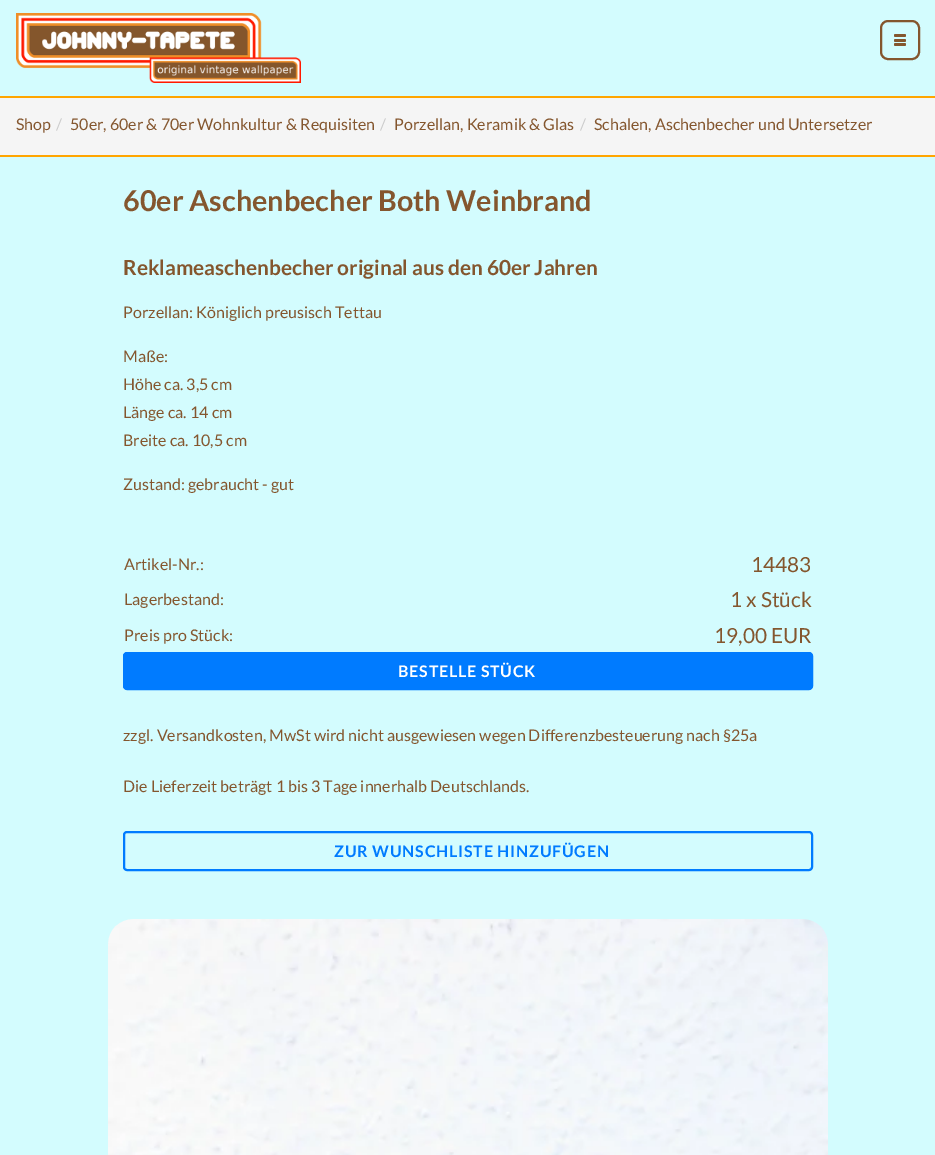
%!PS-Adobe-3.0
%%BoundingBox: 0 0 935 1155
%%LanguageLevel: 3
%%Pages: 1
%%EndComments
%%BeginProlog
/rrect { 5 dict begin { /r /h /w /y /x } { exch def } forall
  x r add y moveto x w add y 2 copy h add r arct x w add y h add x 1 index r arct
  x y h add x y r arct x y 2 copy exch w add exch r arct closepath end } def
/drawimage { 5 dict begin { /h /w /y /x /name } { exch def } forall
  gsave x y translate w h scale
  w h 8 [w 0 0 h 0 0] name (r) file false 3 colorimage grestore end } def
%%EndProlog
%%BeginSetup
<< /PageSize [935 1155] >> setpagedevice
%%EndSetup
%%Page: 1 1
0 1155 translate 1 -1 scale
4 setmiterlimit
0.827 0.988 0.996 setrgbcolor
0 0 935 1155 rectfill
(images/1.raw) 16 13 285 70 drawimage
0.518 0.337 0.18 setrgbcolor
2 setlinewidth
881 21 38 38 7 rrect stroke
894 34 12 3 1.5 rrect fill
894 39 12 3 1.5 rrect fill
894 43 12 3 1.5 rrect fill
0.961 setgray
0 98 935 57 rectfill
1 0.647 0 setrgbcolor
0 96 935 2 rectfill
0 155 935 2 rectfill
0 0.482 1 setrgbcolor
123.5 652.5 689 37 3.5 rrect gsave fill grestore
1 setlinewidth
stroke
2 setlinewidth
124 832 688 38 3 rrect stroke
(images/2.raw) 108 919 720 236 drawimage
/Lato-Regular [16 0 0 -16 0 0] selectfont
0.518 0.337 0.18 setrgbcolor
16 130 moveto (Shop) show
0.8 setgray
56 130 moveto (/) show
0.518 0.337 0.18 setrgbcolor
70 130 moveto (50er, 60er & 70er Wohnkultur & Requisiten) show
0.8 setgray
380 130 moveto (/) show
0.518 0.337 0.18 setrgbcolor
394 130 moveto (Porzellan, Keramik & Glas) show
0.8 setgray
580 130 moveto (/) show
0.518 0.337 0.18 setrgbcolor
594 130 moveto (Schalen, Aschenbecher und Untersetzer) show
/Lato-Bold [28.75 0 0 -28.75 0 0] selectfont
123 211 moveto (60er Aschenbecher Both Weinbrand) show
/Lato-Bold [20.8 0 0 -20.8 0 0] selectfont
123 275 moveto (Reklameaschenbecher original aus den 60er Jahren) show
/Lato-Regular [16 0 0 -16 0 0] selectfont
123 318 moveto (Porzellan: Königlich preusisch Tettau) show
123 362 moveto (Maße:) show
123 390 moveto (Höhe ca. 3,5 cm) show
123 418 moveto (Länge ca. 14 cm) show
123 446 moveto (Breite ca. 10,5 cm) show
123 490 moveto (Zustand: gebraucht - gut) show
124 570 moveto (Artikel-Nr.:) show
/Lato-Regular [20.8 0 0 -20.8 0 0] selectfont
751 572 moveto (14483) show
/Lato-Regular [16 0 0 -16 0 0] selectfont
124 605 moveto (Lagerbestand:) show
/Lato-Regular [20.8 0 0 -20.8 0 0] selectfont
730 607 moveto (1 x Stück) show
/Lato-Regular [16 0 0 -16 0 0] selectfont
124 641 moveto (Preis pro Stück:) show
/Lato-Regular [20.8 0 0 -20.8 0 0] selectfont
714 643 moveto (19,00 EUR) show
/Lato-Bold [16 0 0 -16 0 0] selectfont
1 setgray
398 677 moveto 0.8 0 (BESTELLE STÜCK) ashow
/Lato-Regular [16 0 0 -16 0 0] selectfont
0.518 0.337 0.18 setrgbcolor
123 741 moveto (zzgl. Versandkosten, MwSt wird nicht ausgewiesen wegen Differenzbesteuerung nach §25a) show
123 792 moveto (Die Lieferzeit beträgt 1 bis 3 Tage innerhalb Deutschlands.) show
/Lato-Bold [16 0 0 -16 0 0] selectfont
0 0.482 1 setrgbcolor
334 857 moveto 0.8 0 (ZUR WUNSCHLISTE HINZUFÜGEN) ashow
showpage
%%EOF
